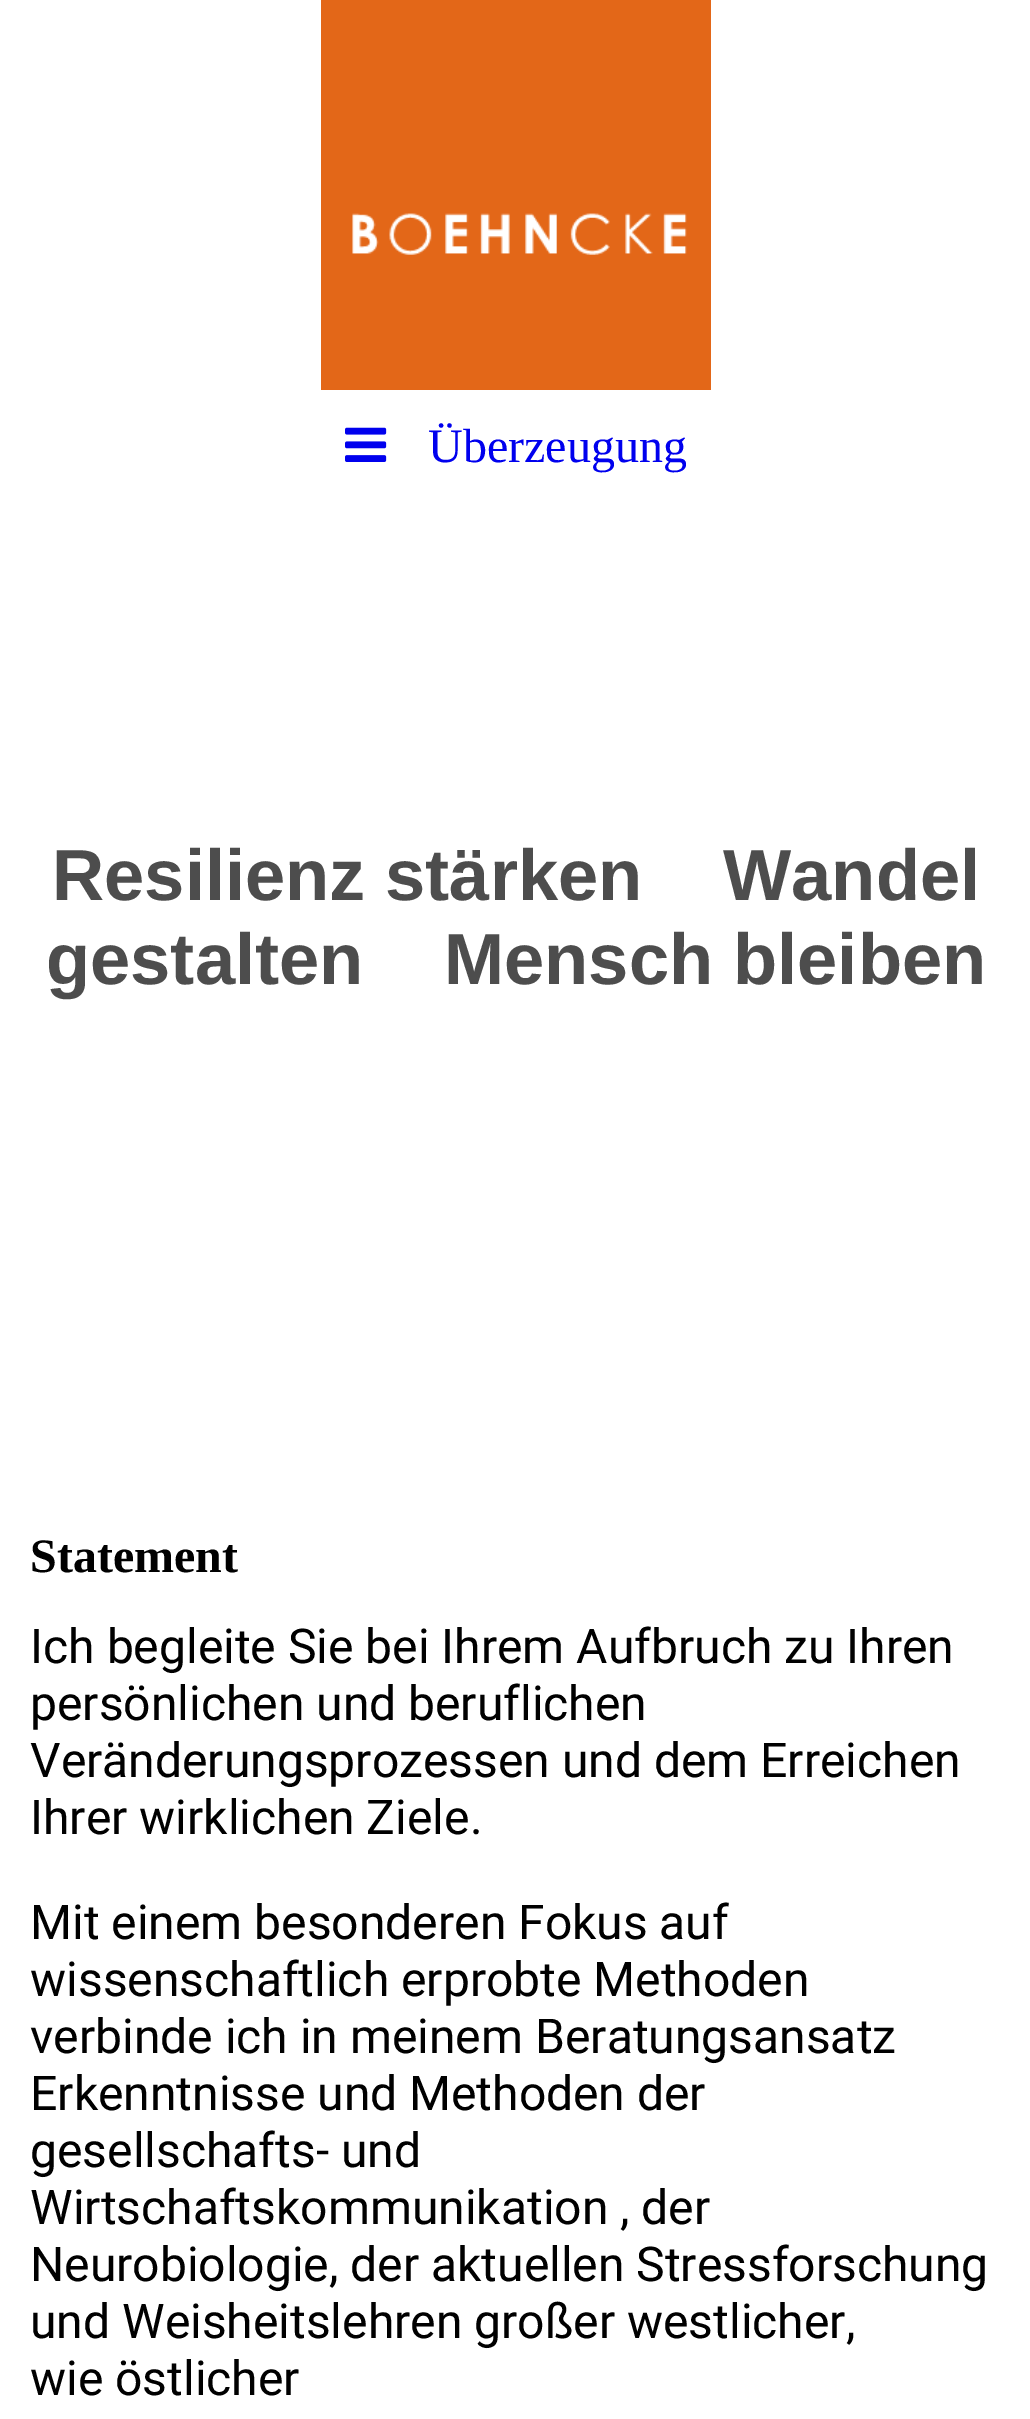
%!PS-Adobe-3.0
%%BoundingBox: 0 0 1030 2419
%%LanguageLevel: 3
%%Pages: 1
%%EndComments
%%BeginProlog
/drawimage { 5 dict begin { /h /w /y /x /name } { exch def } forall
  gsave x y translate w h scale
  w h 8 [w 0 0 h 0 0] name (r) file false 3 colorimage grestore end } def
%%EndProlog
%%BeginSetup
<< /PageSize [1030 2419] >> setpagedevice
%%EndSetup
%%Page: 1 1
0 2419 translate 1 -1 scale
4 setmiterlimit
1 setgray
0 0 1030 2419 rectfill
(images/1.raw) 321 0 390 390 drawimage
(images/2.raw) 345 427 42 35 drawimage
/LiberationSerif-Regular [48 0 0 -48 0 0] selectfont
0 0 0.933 setrgbcolor
428 462 moveto (Überzeugung) show
/LiberationSans-Bold [72.25 0 0 -72.25 0 0] selectfont
0.302 setgray
52 900 moveto (Resilienz stärken) show
723 900 moveto (Wandel) show
46 984 moveto (gestalten) show
444 984 moveto (Mensch bleiben) show
/LiberationSerif-Bold [48 0 0 -48 0 0] selectfont
0 setgray
30 1572 moveto (Statement) show
/Roboto-Regular [48 0 0 -48 0 0] selectfont
30 1663 moveto (Ich begleite Sie bei Ihrem Aufbruch zu Ihren) show
30 1720 moveto (persönlichen und beruflichen) show
30 1777 moveto (Veränderungsprozessen und dem Erreichen) show
30 1834 moveto (Ihrer wirklichen Ziele.) show
30 1939 moveto (Mit einem besonderen Fokus auf) show
30 1996 moveto (wissenschaftlich erprobte Methoden) show
30 2053 moveto (verbinde ich in meinem Beratungsansatz) show
30 2110 moveto (Erkenntnisse und Methoden der) show
30 2167 moveto (gesellschafts- und) show
30 2224 moveto (Wirtschaftskommunikation , der) show
30 2281 moveto (Neurobiologie, der aktuellen Stressforschung) show
30 2338 moveto (und Weisheitslehren großer westlicher,) show
30 2395 moveto (wie östlicher) show
showpage
%%EOF
